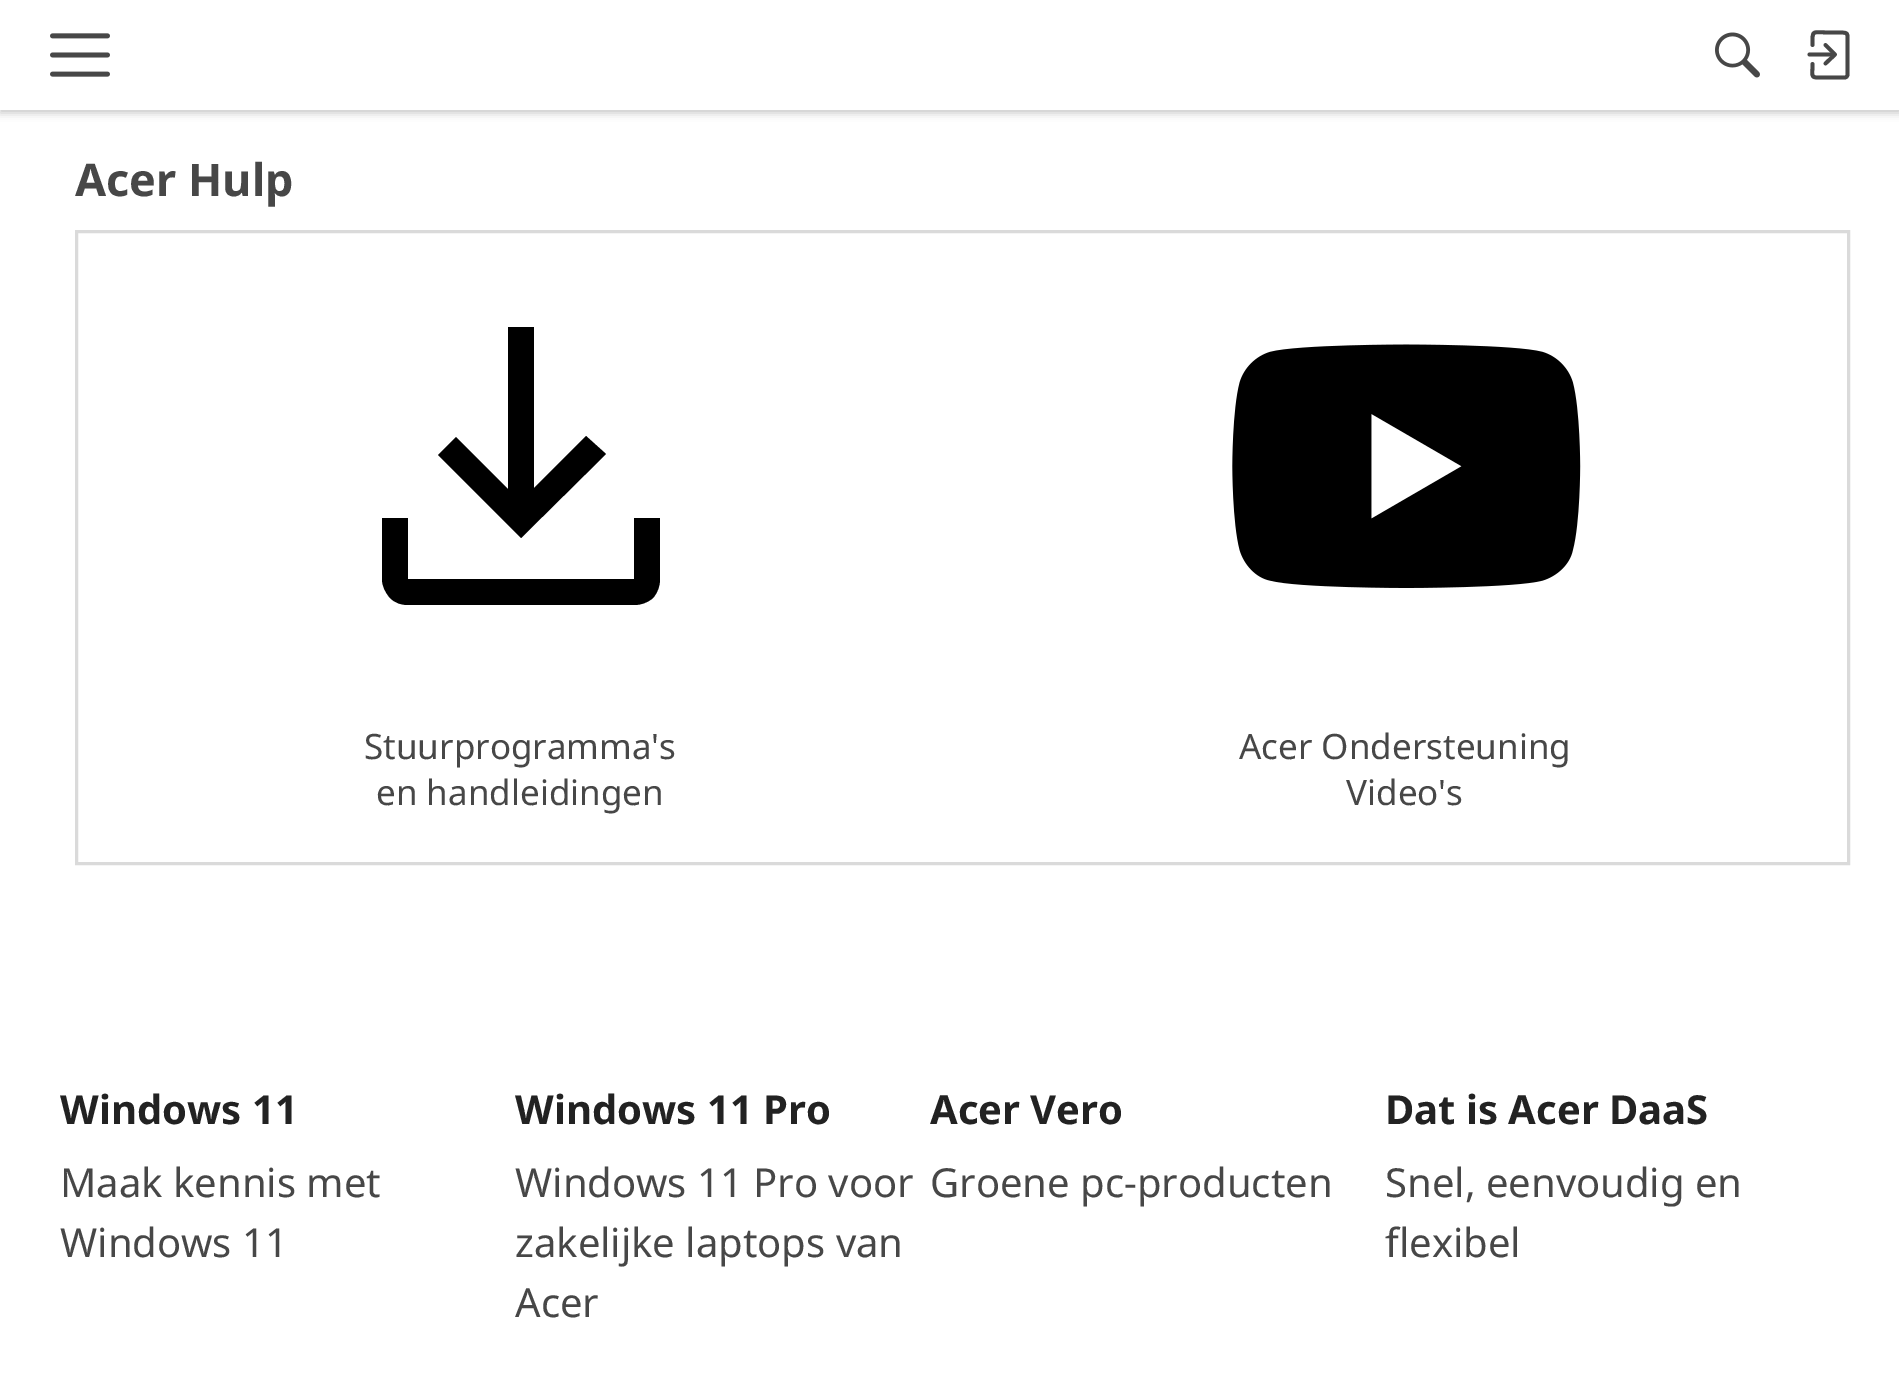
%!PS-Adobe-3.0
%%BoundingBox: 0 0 1899 1382
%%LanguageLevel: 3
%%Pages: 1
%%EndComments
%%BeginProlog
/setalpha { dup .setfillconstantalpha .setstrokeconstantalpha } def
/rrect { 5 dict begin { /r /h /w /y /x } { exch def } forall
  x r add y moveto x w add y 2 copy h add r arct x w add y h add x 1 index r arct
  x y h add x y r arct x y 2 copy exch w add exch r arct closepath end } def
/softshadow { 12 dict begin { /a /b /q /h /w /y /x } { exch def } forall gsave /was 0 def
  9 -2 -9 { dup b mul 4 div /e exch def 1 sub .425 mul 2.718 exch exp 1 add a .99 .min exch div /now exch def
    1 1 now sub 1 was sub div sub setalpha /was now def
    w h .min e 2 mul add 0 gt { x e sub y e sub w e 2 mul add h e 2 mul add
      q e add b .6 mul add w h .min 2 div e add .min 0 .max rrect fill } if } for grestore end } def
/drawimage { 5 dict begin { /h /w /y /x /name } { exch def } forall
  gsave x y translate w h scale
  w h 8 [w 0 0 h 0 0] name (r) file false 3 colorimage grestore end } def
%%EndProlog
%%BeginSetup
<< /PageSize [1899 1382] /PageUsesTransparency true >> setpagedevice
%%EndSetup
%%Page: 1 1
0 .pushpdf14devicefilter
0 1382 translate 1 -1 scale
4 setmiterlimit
1 setgray
0 0 1899 1382 rectfill
0 setgray
0 3 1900 110 0 4 0.22 softshadow
1 setgray
0 0 1899 110 rectfill
(images/1.raw) 50 33 60 44 drawimage
(images/2.raw) 1715 32 45 46 drawimage
0.278 setgray
3.8 setlinewidth
1 setlinecap
1 setlinejoin
newpath 1825.5 63.5 moveto 1835 54.5 lineto 1825.5 45 lineto stroke
0 setlinejoin
newpath 1834 54.5 moveto 1809.5 54.5 lineto stroke
1 setlinejoin
newpath 1812.5 45 moveto 1812.5 29 1811.5 32.5 1830 32.5 curveto 1839.5 32.5 lineto 1849 32.5 1847.5 33.5 1847.5 43 curveto 1847.5 74.5 lineto 1847.5 78.5 1843.5 77.5 1840.5 77.5 curveto 1825.5 77.5 lineto 1809.5 77.5 1812.5 79 1812.5 64 curveto stroke
0.855 setgray
3 setlinewidth
0 setlinecap
0 setlinejoin
76.5 231.5 1772 632 rectstroke
0 setgray
newpath 408 605 moveto 401 605 395 603 390 598 curveto 385 592 382 586 382 579 curveto 382 518 lineto 408 518 lineto 408 579 lineto 634 579 lineto 634 518 lineto 660 518 lineto 660 579 lineto 660 586 658 592 653 598 curveto 647 603 641 605 634 605 curveto closepath 521 538 moveto 438 455 lineto 456 437 lineto 508 489 lineto 508 327 lineto 534 327 lineto 534 488 lineto 586 436 lineto 606 454 lineto closepath fill
(images/3.raw) 1232 344 349 244 drawimage
/NotoSans-Bold [45 0 0 -45 0 0] selectfont
0.278 setgray
75 196 moveto (Acer Hulp) show
/NotoSans-Regular [35 0 0 -35 0 0] selectfont
364 759 moveto (Stuurprogramma's) show
376 805 moveto (en handleidingen) show
1239 759 moveto (Acer Ondersteuning) show
1346 805 moveto (Video's) show
/NotoSans-Bold [40 0 0 -40 0 0] selectfont
0.133 setgray
60 1124 moveto (Windows 11) show
/NotoSans-Regular [40 0 0 -40 0 0] selectfont
0.278 setgray
60 1197 moveto (Maak kennis met) show
60 1257 moveto (Windows 11) show
/NotoSans-Bold [40 0 0 -40 0 0] selectfont
0.133 setgray
515 1124 moveto (Windows 11 Pro) show
/NotoSans-Regular [40 0 0 -40 0 0] selectfont
0.278 setgray
515 1197 moveto (Windows 11 Pro voor) show
515 1257 moveto (zakelijke laptops van) show
515 1317 moveto (Acer) show
/NotoSans-Bold [40 0 0 -40 0 0] selectfont
0.133 setgray
930 1124 moveto (Acer Vero) show
/NotoSans-Regular [40 0 0 -40 0 0] selectfont
0.278 setgray
930 1197 moveto (Groene pc-producten) show
/NotoSans-Bold [40 0 0 -40 0 0] selectfont
0.133 setgray
1385 1124 moveto (Dat is Acer DaaS) show
/NotoSans-Regular [40 0 0 -40 0 0] selectfont
0.278 setgray
1385 1197 moveto (Snel, eenvoudig en) show
1385 1257 moveto (flexibel) show
.poppdf14devicefilter showpage
%%EOF
